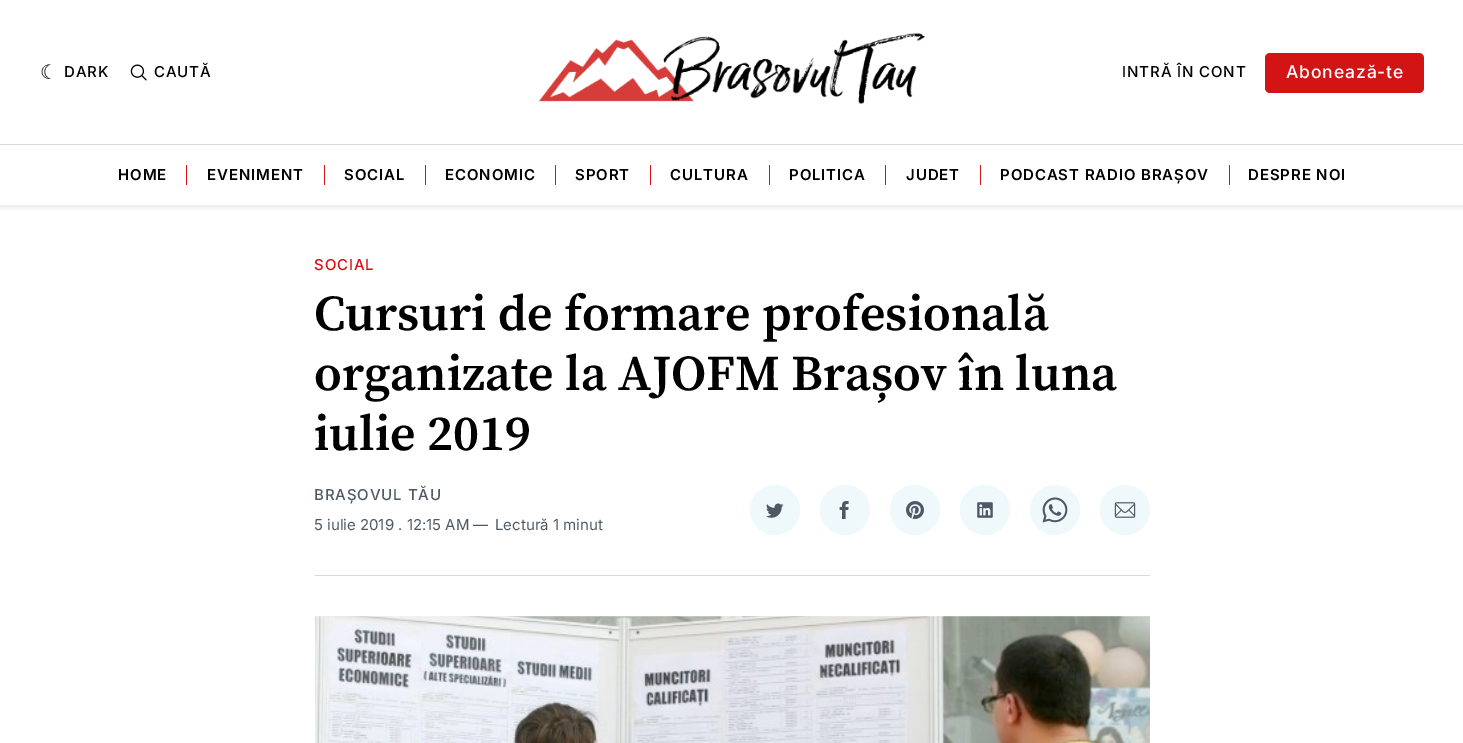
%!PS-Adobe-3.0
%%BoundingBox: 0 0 1463 743
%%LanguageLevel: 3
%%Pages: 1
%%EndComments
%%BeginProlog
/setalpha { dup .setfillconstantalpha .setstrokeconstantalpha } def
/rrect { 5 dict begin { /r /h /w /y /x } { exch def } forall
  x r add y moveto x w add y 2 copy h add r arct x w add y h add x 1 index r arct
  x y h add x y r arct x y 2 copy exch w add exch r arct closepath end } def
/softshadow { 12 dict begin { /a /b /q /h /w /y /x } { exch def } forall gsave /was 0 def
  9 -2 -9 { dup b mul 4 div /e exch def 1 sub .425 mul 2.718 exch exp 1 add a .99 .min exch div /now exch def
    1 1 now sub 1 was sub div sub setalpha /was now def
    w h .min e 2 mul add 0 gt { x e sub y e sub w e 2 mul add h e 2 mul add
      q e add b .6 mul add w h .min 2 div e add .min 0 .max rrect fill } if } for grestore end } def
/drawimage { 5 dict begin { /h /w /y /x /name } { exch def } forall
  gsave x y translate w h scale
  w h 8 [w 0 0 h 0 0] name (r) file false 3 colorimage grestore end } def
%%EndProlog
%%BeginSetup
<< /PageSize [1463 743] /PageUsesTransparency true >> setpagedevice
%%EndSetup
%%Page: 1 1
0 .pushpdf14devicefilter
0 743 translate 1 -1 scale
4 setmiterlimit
1 setgray
0 0 1463 743 rectfill
gsave
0 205 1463 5 rectclip
0 setgray
-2 -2 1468 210 0 2.5 0.08 softshadow
grestore
0.851 setgray
0 144 1463 1 rectfill
(images/1.raw) 130 64 17 17 drawimage
(images/2.raw) 538 33 387 71 drawimage
0.824 0.078 0.078 setrgbcolor
1265 53 159 40 5 rrect fill
186 165 1 20 rectfill
324 165 1 20 rectfill
425 165 1 20 rectfill
555 165 1 20 rectfill
650 165 1 20 rectfill
769 165 1 20 rectfill
885 165 1 20 rectfill
980 165 1 20 rectfill
1229 165 1 20 rectfill
0.851 setgray
315 575 835 1 rectfill
0.937 0.973 0.98 setrgbcolor
newpath 775 510 25 0 360 arc closepath fill
(images/3.raw) 766 503 18 15 drawimage
newpath 845 510 25 0 360 arc closepath fill
(images/4.raw) 839 501 10 18 drawimage
newpath 915 510 25 0 360 arc closepath fill
(images/5.raw) 906 501 18 18 drawimage
newpath 985 510 25 0 360 arc closepath fill
(images/6.raw) 977 502 16 16 drawimage
newpath 1055 510 25 0 360 arc closepath fill
(images/7.raw) 1042 497 26 26 drawimage
newpath 1125 510 25 0 360 arc closepath fill
(images/8.raw) 1114 502 22 16 drawimage
(images/9.raw) 315 616 835 127 drawimage
/DejaVuSans-Regular [20 0 0 -20 0 0] selectfont
0 setgray
40 79 moveto 0.9 0 (☾) ashow
/Inter-Medium [15 0 0 -15 0 0] selectfont
64 77 moveto 0.9 0 (DARK) ashow
154 77 moveto 0.9 0 (CAUTĂ) ashow
1122 77 moveto 0.9 0 (INTRĂ ÎN CONT) ashow
/Inter-Medium [17.5 0 0 -17.5 0 0] selectfont
1 setgray
1286 78 moveto 0.9 0 (Abonează-te) ashow
/Inter-SemiBold [15 0 0 -15 0 0] selectfont
0 setgray
118 180 moveto 0.9 0 (HOME) ashow
207 180 moveto 0.9 0 (EVENIMENT) ashow
344 180 moveto 0.9 0 (SOCIAL) ashow
445 180 moveto 0.9 0 (ECONOMIC) ashow
575 180 moveto 0.9 0 (SPORT) ashow
670 180 moveto 0.9 0 (CULTURA) ashow
789 180 moveto 0.9 0 (POLITICA) ashow
906 180 moveto 0.9 0 (JUDET) ashow
1000 180 moveto 0.9 0 (PODCAST RADIO BRAȘOV) ashow
1248 180 moveto 0.9 0 (DESPRE NOI) ashow
/Inter-Medium [15 0 0 -15 0 0] selectfont
0.824 0.078 0.078 setrgbcolor
314 270 moveto 0.9 0 (SOCIAL) ashow
/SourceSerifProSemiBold-SemiBold [50 0 0 -50 0 0] selectfont
0 setgray
314 330 moveto (Cursuri de formare profesională) show
314 390 moveto (organizate la AJOFM Brașov în luna) show
314 450 moveto (iulie 2019) show
/Inter-Medium [15 0 0 -15 0 0] selectfont
0.306 0.349 0.396 setrgbcolor
314 500 moveto 0.9 0 (BRAȘOVUL TĂU) ashow
/Inter-Regular [15 0 0 -15 0 0] selectfont
314 530 moveto (5 iulie 2019 . 12:15 AM —) show
495 530 moveto (Lectură 1 minut) show
.poppdf14devicefilter showpage
%%EOF
